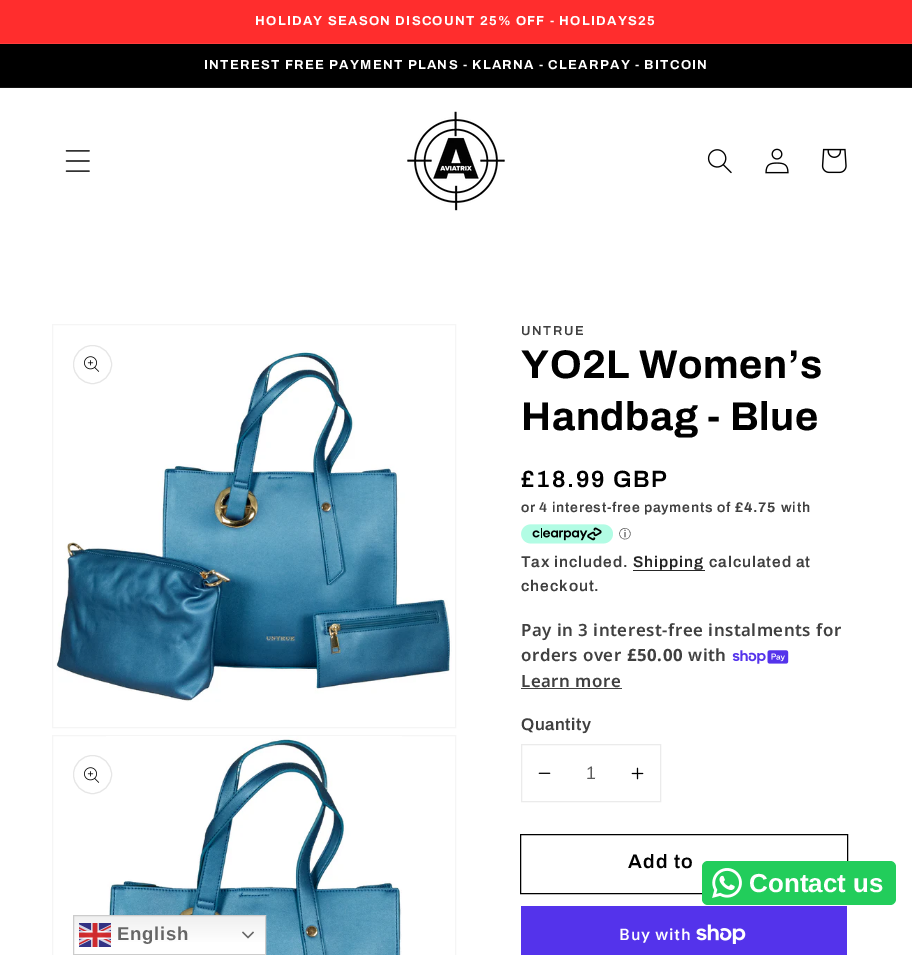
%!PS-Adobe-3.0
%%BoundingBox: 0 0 912 955
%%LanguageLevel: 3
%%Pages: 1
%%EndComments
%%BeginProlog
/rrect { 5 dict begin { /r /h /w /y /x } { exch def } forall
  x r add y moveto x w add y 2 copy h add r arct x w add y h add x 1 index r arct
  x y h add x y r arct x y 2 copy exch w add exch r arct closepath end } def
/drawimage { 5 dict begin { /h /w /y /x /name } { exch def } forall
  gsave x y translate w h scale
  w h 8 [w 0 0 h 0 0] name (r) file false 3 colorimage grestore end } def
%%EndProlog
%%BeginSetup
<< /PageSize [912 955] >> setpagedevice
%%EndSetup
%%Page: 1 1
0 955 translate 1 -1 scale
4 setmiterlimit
1 setgray
0 0 912 955 rectfill
1 0.176 0.176 setrgbcolor
0 0 912 43 rectfill
1 0.243 0.243 setrgbcolor
0 43 912 1 rectfill
0 setgray
0 44 912 43 rectfill
0.078 setgray
0 87 912 1 rectfill
(images/1.raw) 65 150 25 22 drawimage
(images/2.raw) 407 111 98 100 drawimage
(images/3.raw) 707 149 25 25 drawimage
(images/4.raw) 765 148 24 26 drawimage
(images/5.raw) 821 148 26 26 drawimage
0.961 setgray
52.5 324.5 403 403 rectstroke
(images/7.raw) 56 350 396 352 drawimage
0.902 setgray
newpath 92.5 364.5 19 0 360 arc closepath stroke
(images/6.raw) 84 356 16 16 drawimage
0.961 setgray
52.5 735.5 403 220 rectstroke
(images/8.raw) 106 736 296 219 drawimage
0.902 setgray
newpath 92.5 774.5 19 0 360 arc closepath stroke
(images/6.raw) 84 767 16 16 drawimage
(images/9.raw) 521 524 92 20 drawimage
0.149 setgray
633 570 72 1 rectfill
(images/10.raw) 732 650 57 14 drawimage
0.251 setgray
521 688 101 1 rectfill
0.922 setgray
521.5 744.5 139 57 rectstroke
(images/11.raw) 538 772 13 2 drawimage
(images/12.raw) 631 767 13 13 drawimage
0 setgray
520.5 834.5 327 59 rectstroke
0.329 0.2 0.922 setrgbcolor
521 906 326 49 rectfill
(images/13.raw) 696 924 50 20 drawimage
0.133 0.804 0.357 setrgbcolor
702 861 194 44 6 rrect fill
(images/14.raw) 712 868 30 30 drawimage
gsave newpath 74 916 moveto 265 916 lineto 265 954 lineto 74 954 lineto closepath clip newpath
<< /ShadingType 2 /ColorSpace /DeviceRGB /Coords [170 915 170 955] /Extend [true true] /Function << /FunctionType 3 /Domain [0 1] /Functions [<< /FunctionType 2 /Domain [0 1] /C0 [0.937 0.937 0.937] /C1 [1 1 1] /N 1 >> << /FunctionType 2 /Domain [0 1] /C0 [1 1 1] /C1 [1 1 1] /N 1 >>] /Bounds [0.7] /Encode [0 1 0 1] >> >> shfill grestore
0.8 setgray
73.5 915.5 192 39 rectstroke
(images/15.raw) 79 923 32 24 drawimage
(images/16.raw) 242 931 12 8 drawimage
/Archivo-Bold [13 0 0 -13 0 0] selectfont
1 setgray
255 25 moveto 1.3 0 (HOLIDAY SEASON DISCOUNT 25% OFF - HOLIDAYS25) ashow
204 69 moveto 1.3 0 (INTEREST FREE PAYMENT PLANS - KLARNA - CLEARPAY - BITCOIN) ashow
/Archivo-SemiBold [13 0 0 -13 0 0] selectfont
0.251 setgray
521 335 moveto 1.75 0 (UNTRUE) ashow
/Archivo-Bold [40 0 0 -40 0 0] selectfont
0 setgray
521 378 moveto 0.6 0 (YO2L Women’s) ashow
521 430 moveto 0.6 0 (Handbag - Blue) ashow
/Archivo-SemiBold [23.5 0 0 -23.5 0 0] selectfont
521 487 moveto 1.75 0 (£18.99 GBP) ashow
/Archivo-SemiBold [14 0 0 -14 0 0] selectfont
0.251 setgray
521 512 moveto 0.75 0 (or 4 interest-free payments of) ashow
/Archivo-Bold [14 0 0 -14 0 0] selectfont
735 512 moveto 0.75 0 (£4.75) ashow
/Archivo-SemiBold [14 0 0 -14 0 0] selectfont
781 512 moveto 0.75 0 (with) ashow
/WenQuanYiZenHei-Medium [12 0 0 -12 0 0] selectfont
619 538 moveto (ⓘ) show
/Archivo-SemiBold [15.5 0 0 -15.5 0 0] selectfont
521 567 moveto 0.9 0 (Tax included.) ashow
0.149 setgray
633 567 moveto 0.9 0 (Shipping) ashow
0.251 setgray
709 567 moveto 0.9 0 (calculated at) ashow
521 591 moveto 0.9 0 (checkout.) ashow
/NotoSans-SemiBold [16.9 0 0 -16.9 0 0] selectfont
521 636 moveto 0.5 0 (Pay in 3 interest-free instalments for) ashow
521 661 moveto 0.5 0 (orders over) ashow
/NotoSans-Bold [16.9 0 0 -16.9 0 0] selectfont
627 661 moveto 0.5 0 (£50.00) ashow
/NotoSans-SemiBold [16.9 0 0 -16.9 0 0] selectfont
688 661 moveto 0.5 0 (with) ashow
521 687 moveto 0.5 0 (Learn more) ashow
/Archivo-SemiBold [16.9 0 0 -16.9 0 0] selectfont
521 730 moveto 0.5 0 (Quantity) ashow
/LiberationSans-Regular [18 0 0 -18 0 0] selectfont
0.361 setgray
586 779 moveto (1) show
/Archivo-SemiBold [19.5 0 0 -19.5 0 0] selectfont
0 setgray
628 868 moveto 1.3 0 (Add to) ashow
/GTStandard-SemiBold [16 0 0 -16 0 0] selectfont
1 setgray
619 940 moveto 0.75 0 (Buy with) ashow
/LiberationSans-Bold [26 0 0 -26 0 0] selectfont
749 892 moveto (Contact us) show
/LiberationSans-Bold [18.5 0 0 -18.5 0 0] selectfont
0.4 setgray
117 940 moveto 0.75 0 (English) ashow
showpage
%%EOF
